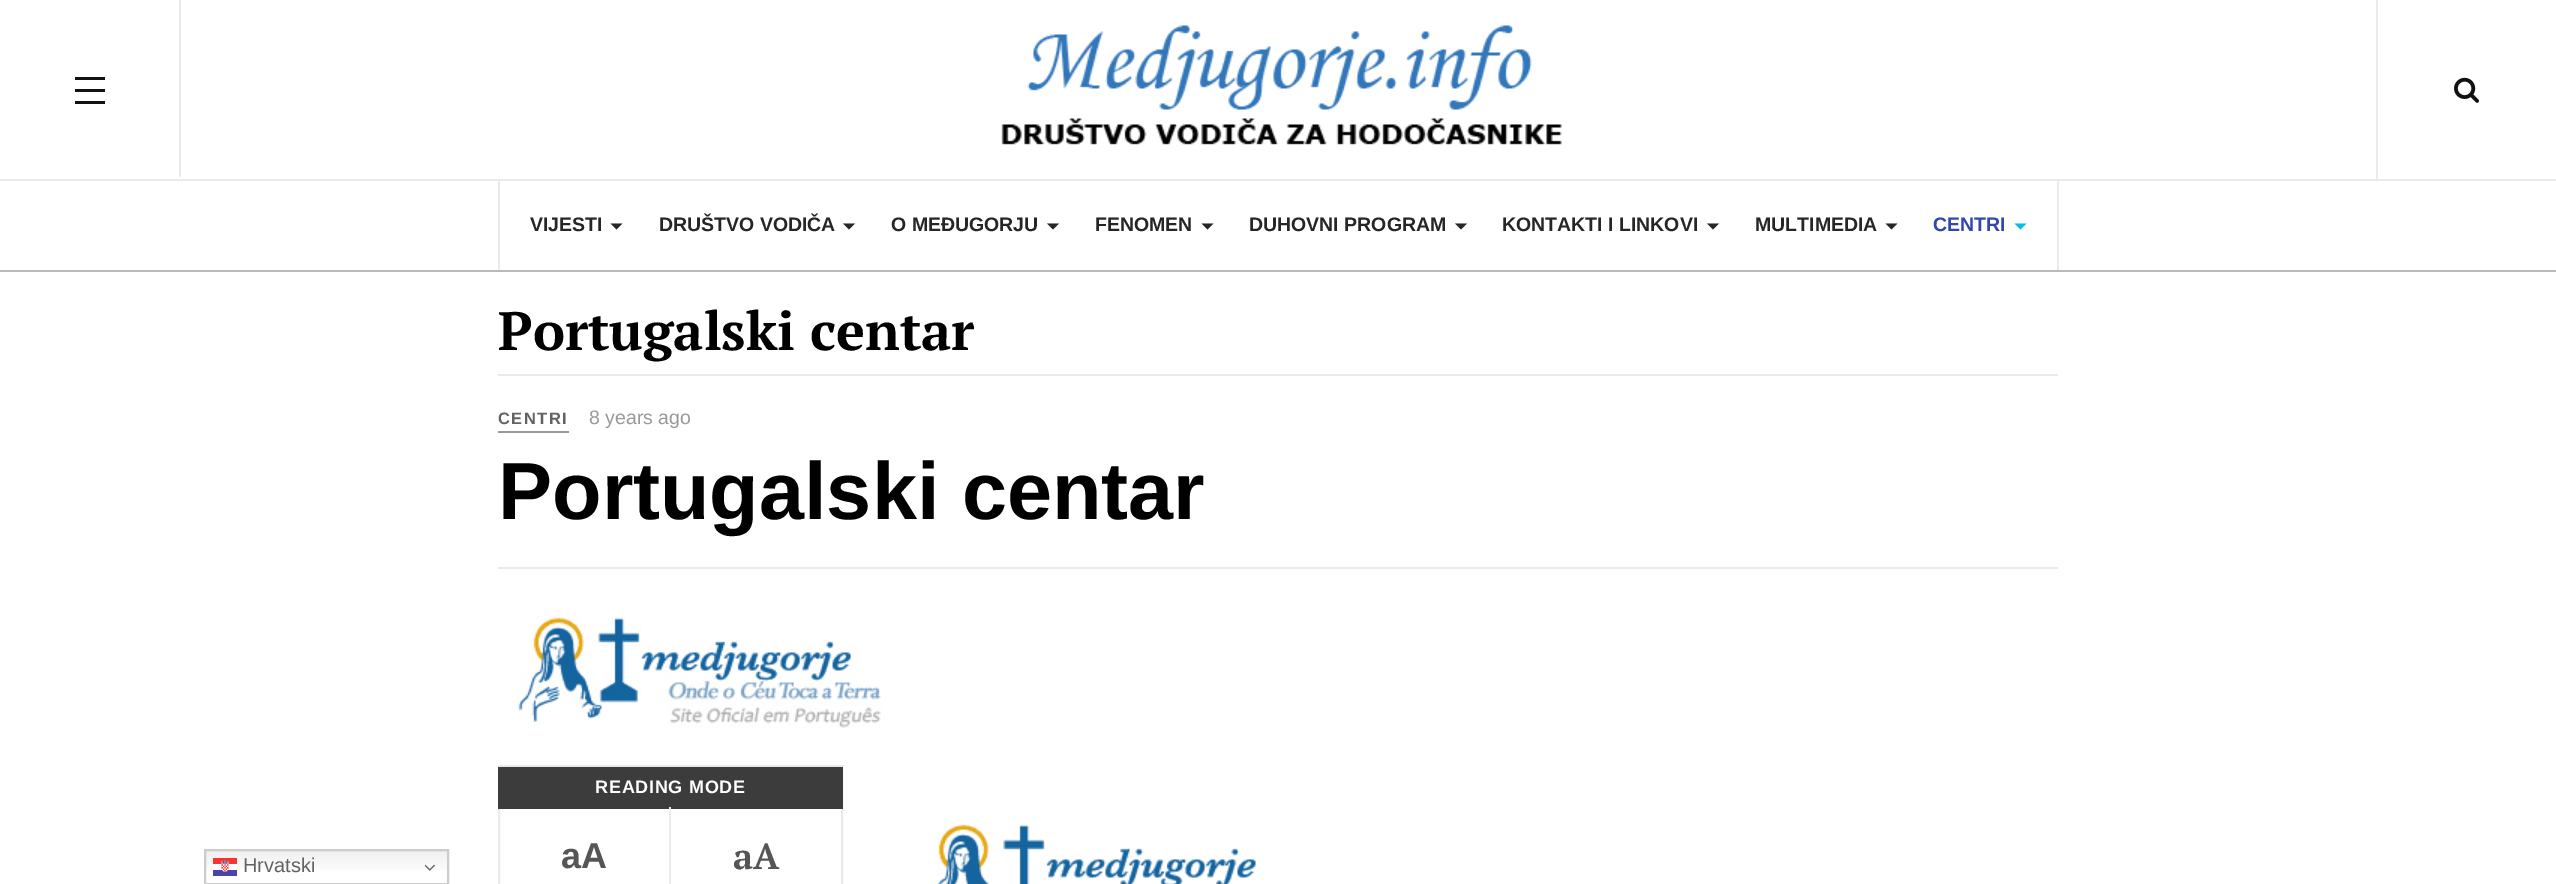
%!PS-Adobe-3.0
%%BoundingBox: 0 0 2556 884
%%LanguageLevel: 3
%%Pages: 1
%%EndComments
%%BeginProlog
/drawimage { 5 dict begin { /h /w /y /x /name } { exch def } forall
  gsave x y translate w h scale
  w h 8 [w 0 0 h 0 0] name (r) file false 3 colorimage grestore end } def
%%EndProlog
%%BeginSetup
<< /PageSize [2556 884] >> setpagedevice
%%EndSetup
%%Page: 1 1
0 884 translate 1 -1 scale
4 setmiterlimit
1 setgray
0 0 2556 884 rectfill
0.725 setgray
0 270 2556 2 rectfill
0.918 setgray
2057 180 2 90 rectfill
498 180 2 90 rectfill
0.149 setgray
newpath 610.5 223.5 moveto 622.5 223.5 lineto 616.5 229.5 lineto closepath fill
newpath 843 223.5 moveto 855 223.5 lineto 849 229.5 lineto closepath fill
newpath 1047 223.5 moveto 1059 223.5 lineto 1053 229.5 lineto closepath fill
newpath 1201.5 223.5 moveto 1213.5 223.5 lineto 1207.5 229.5 lineto closepath fill
newpath 1455 223.5 moveto 1467 223.5 lineto 1461 229.5 lineto closepath fill
newpath 1707 223.5 moveto 1719 223.5 lineto 1713 229.5 lineto closepath fill
newpath 1885.5 223.5 moveto 1897.5 223.5 lineto 1891.5 229.5 lineto closepath fill
0 0.749 0.902 setrgbcolor
newpath 2014.5 223.5 moveto 2026.5 223.5 lineto 2020.5 229.5 lineto closepath fill
0.918 setgray
0 179 2556 2 rectfill
179 0 2 177 rectfill
0.067 setgray
75 89 30 3 rectfill
75 77 30 3 rectfill
75 101 30 3 rectfill
(images/1.raw) 1001 25 561 120 drawimage
0.918 setgray
2376 0 2 179 rectfill
(images/2.raw) 2454 77 25 26 drawimage
gsave newpath 206 851 moveto 447 851 lineto 447 870 lineto 206 870 lineto closepath clip newpath
<< /ShadingType 2 /ColorSpace /DeviceRGB /Coords [326 849 326 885] /Extend [true true] /Function << /FunctionType 3 /Domain [0 1] /Functions [<< /FunctionType 2 /Domain [0 1] /C0 [0.937 0.937 0.937] /C1 [1 1 1] /N 1 >> << /FunctionType 2 /Domain [0 1] /C0 [1 1 1] /C1 [1 1 1] /N 1 >>] /Bounds [0.7] /Encode [0 1 0 1] >> >> shfill grestore
0.8 setgray
2 setlinewidth
205 850 243 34 rectstroke
(images/3.raw) 213 858 24 18 drawimage
(images/4.raw) 425 864 10 7 drawimage
0.918 setgray
498 374 1560 2 rectfill
0.6 setgray
498 431 71 2 rectfill
0.918 setgray
498 567 1560 2 rectfill
(images/5.raw) 518 617 363 111 drawimage
499 766 343 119 rectstroke
0.235 setgray
498 767 345 42 rectfill
0.918 setgray
669 807 2 77 rectfill
(images/6.raw) 937 824 319 60 drawimage
/LiberationSans-Bold [19.5 0 0 -19.5 0 0] selectfont
0.149 setgray
530 231 moveto (VIJESTI) show
659 231 moveto (DRUŠTVO VODIČA) show
891 231 moveto (O MEĐUGORJU) show
1095 231 moveto (FENOMEN) show
1249 231 moveto (DUHOVNI PROGRAM) show
1502 231 moveto (KONTAKTI I LINKOVI) show
1755 231 moveto (MULTIMEDIA) show
0.196 0.275 0.671 setrgbcolor
1933 231 moveto (CENTRI) show
/LiberationSans-Regular [20 0 0 -20 0 0] selectfont
0.384 setgray
243 872 moveto (Hrvatski) show
/PTSerif-Bold [54 0 0 -54 0 0] selectfont
0 setgray
498 350 moveto (Portugalski centar) show
/LiberationSans-Bold [16.5 0 0 -16.5 0 0] selectfont
0.384 setgray
498 424 moveto 1.5 0 (CENTRI) ashow
/LiberationSans-Regular [19.5 0 0 -19.5 0 0] selectfont
0.6 setgray
589 424 moveto (8 years ago) show
/LiberationSans-Bold [81 0 0 -81 0 0] selectfont
0 setgray
498 519 moveto (Portugalski centar) show
/LiberationSans-Bold [18 0 0 -18 0 0] selectfont
1 setgray
595 793 moveto 0.75 0 (READING MODE) ashow
/LiberationSans-Bold [36 0 0 -36 0 0] selectfont
0.333 setgray
561 868 moveto (aA) show
/PTSerif-Bold [36 0 0 -36 0 0] selectfont
733 869 moveto (aA) show
showpage
%%EOF
